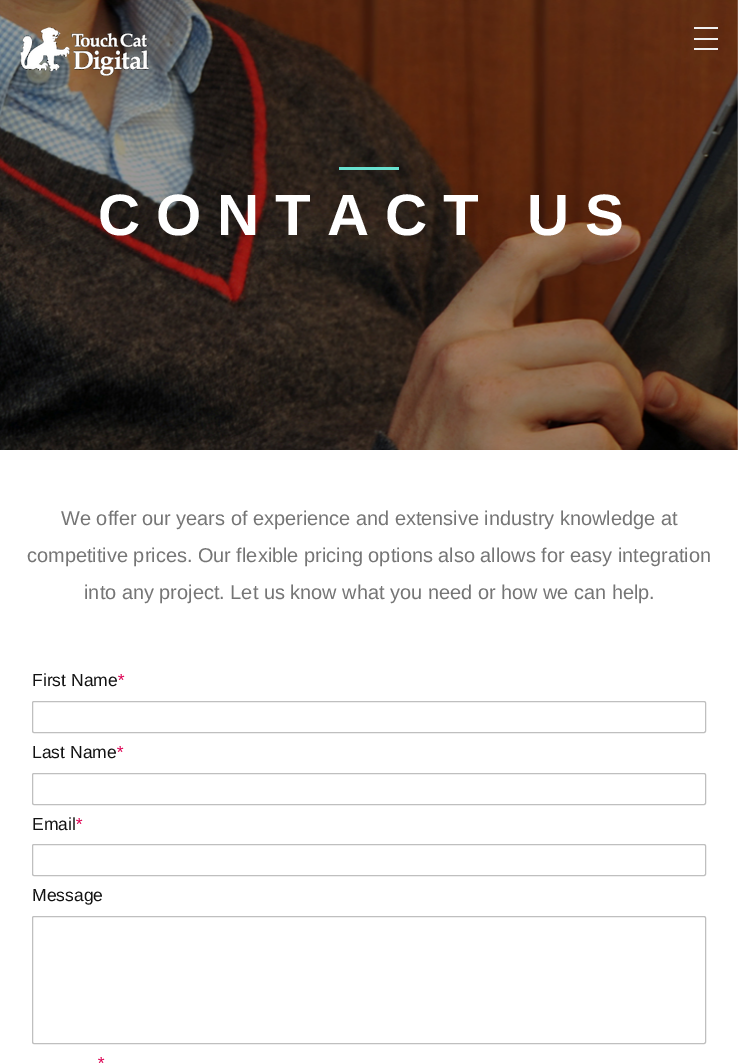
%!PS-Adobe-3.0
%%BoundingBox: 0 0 738 1064
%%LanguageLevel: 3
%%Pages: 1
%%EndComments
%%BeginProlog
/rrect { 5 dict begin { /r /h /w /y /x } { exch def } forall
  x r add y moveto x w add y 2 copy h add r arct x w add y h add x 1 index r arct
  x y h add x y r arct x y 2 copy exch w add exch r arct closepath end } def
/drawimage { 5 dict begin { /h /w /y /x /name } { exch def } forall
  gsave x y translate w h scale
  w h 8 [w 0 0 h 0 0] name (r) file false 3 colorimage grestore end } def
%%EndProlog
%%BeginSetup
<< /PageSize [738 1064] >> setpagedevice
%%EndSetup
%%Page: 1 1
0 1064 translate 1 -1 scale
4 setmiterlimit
1 setgray
0 0 738 1064 rectfill
(images/1.raw) 0 0 738 450 drawimage
(images/2.raw) 20 27 129 49 drawimage
0.945 setgray
694 27 24 2 rectfill
694 38 24 2 rectfill
694 48 24 2 rectfill
0.408 0.878 0.812 setrgbcolor
339 167 60 3 rectfill
0.749 setgray
32.5 701.5 673 31 1.5 rrect stroke
32.5 773.5 673 31 1.5 rrect stroke
32.5 844.5 673 31 1.5 rrect stroke
32.5 916.5 673 127 1.5 rrect stroke
/LiberationSans-Bold [58.25 0 0 -58.25 0 0] selectfont
1 setgray
98 235 moveto 16 0 (CONTACT US) ashow
/LiberationSans-Regular [19.95 0 0 -19.95 0 0] selectfont
0.459 setgray
61 525 moveto (We offer our years of experience and extensive industry knowledge at) show
27 562 moveto (competitive prices. Our flexible pricing options also allows for easy integration) show
84 599 moveto (into any project. Let us know what you need or how we can help.) show
/LiberationSans-Regular [17.5 0 0 -17.5 0 0] selectfont
0.071 setgray
32 686 moveto (First Name) show
/LiberationSans-Italic [17.5 0 0 -17.5 0 0] selectfont
0.867 0 0.322 setrgbcolor
117 686 moveto (*) show
/LiberationSans-Regular [17.5 0 0 -17.5 0 0] selectfont
0.071 setgray
32 758 moveto (Last Name) show
/LiberationSans-Italic [17.5 0 0 -17.5 0 0] selectfont
0.867 0 0.322 setrgbcolor
116 758 moveto (*) show
/LiberationSans-Regular [17.5 0 0 -17.5 0 0] selectfont
0.071 setgray
32 830 moveto (Email) show
/LiberationSans-Italic [17.5 0 0 -17.5 0 0] selectfont
0.867 0 0.322 setrgbcolor
75 830 moveto (*) show
/LiberationSans-Regular [17.5 0 0 -17.5 0 0] selectfont
0.071 setgray
32 901 moveto (Message) show
/LiberationSans-Italic [17.5 0 0 -17.5 0 0] selectfont
0.867 0 0.322 setrgbcolor
97 1069 moveto (*) show
showpage
%%EOF
